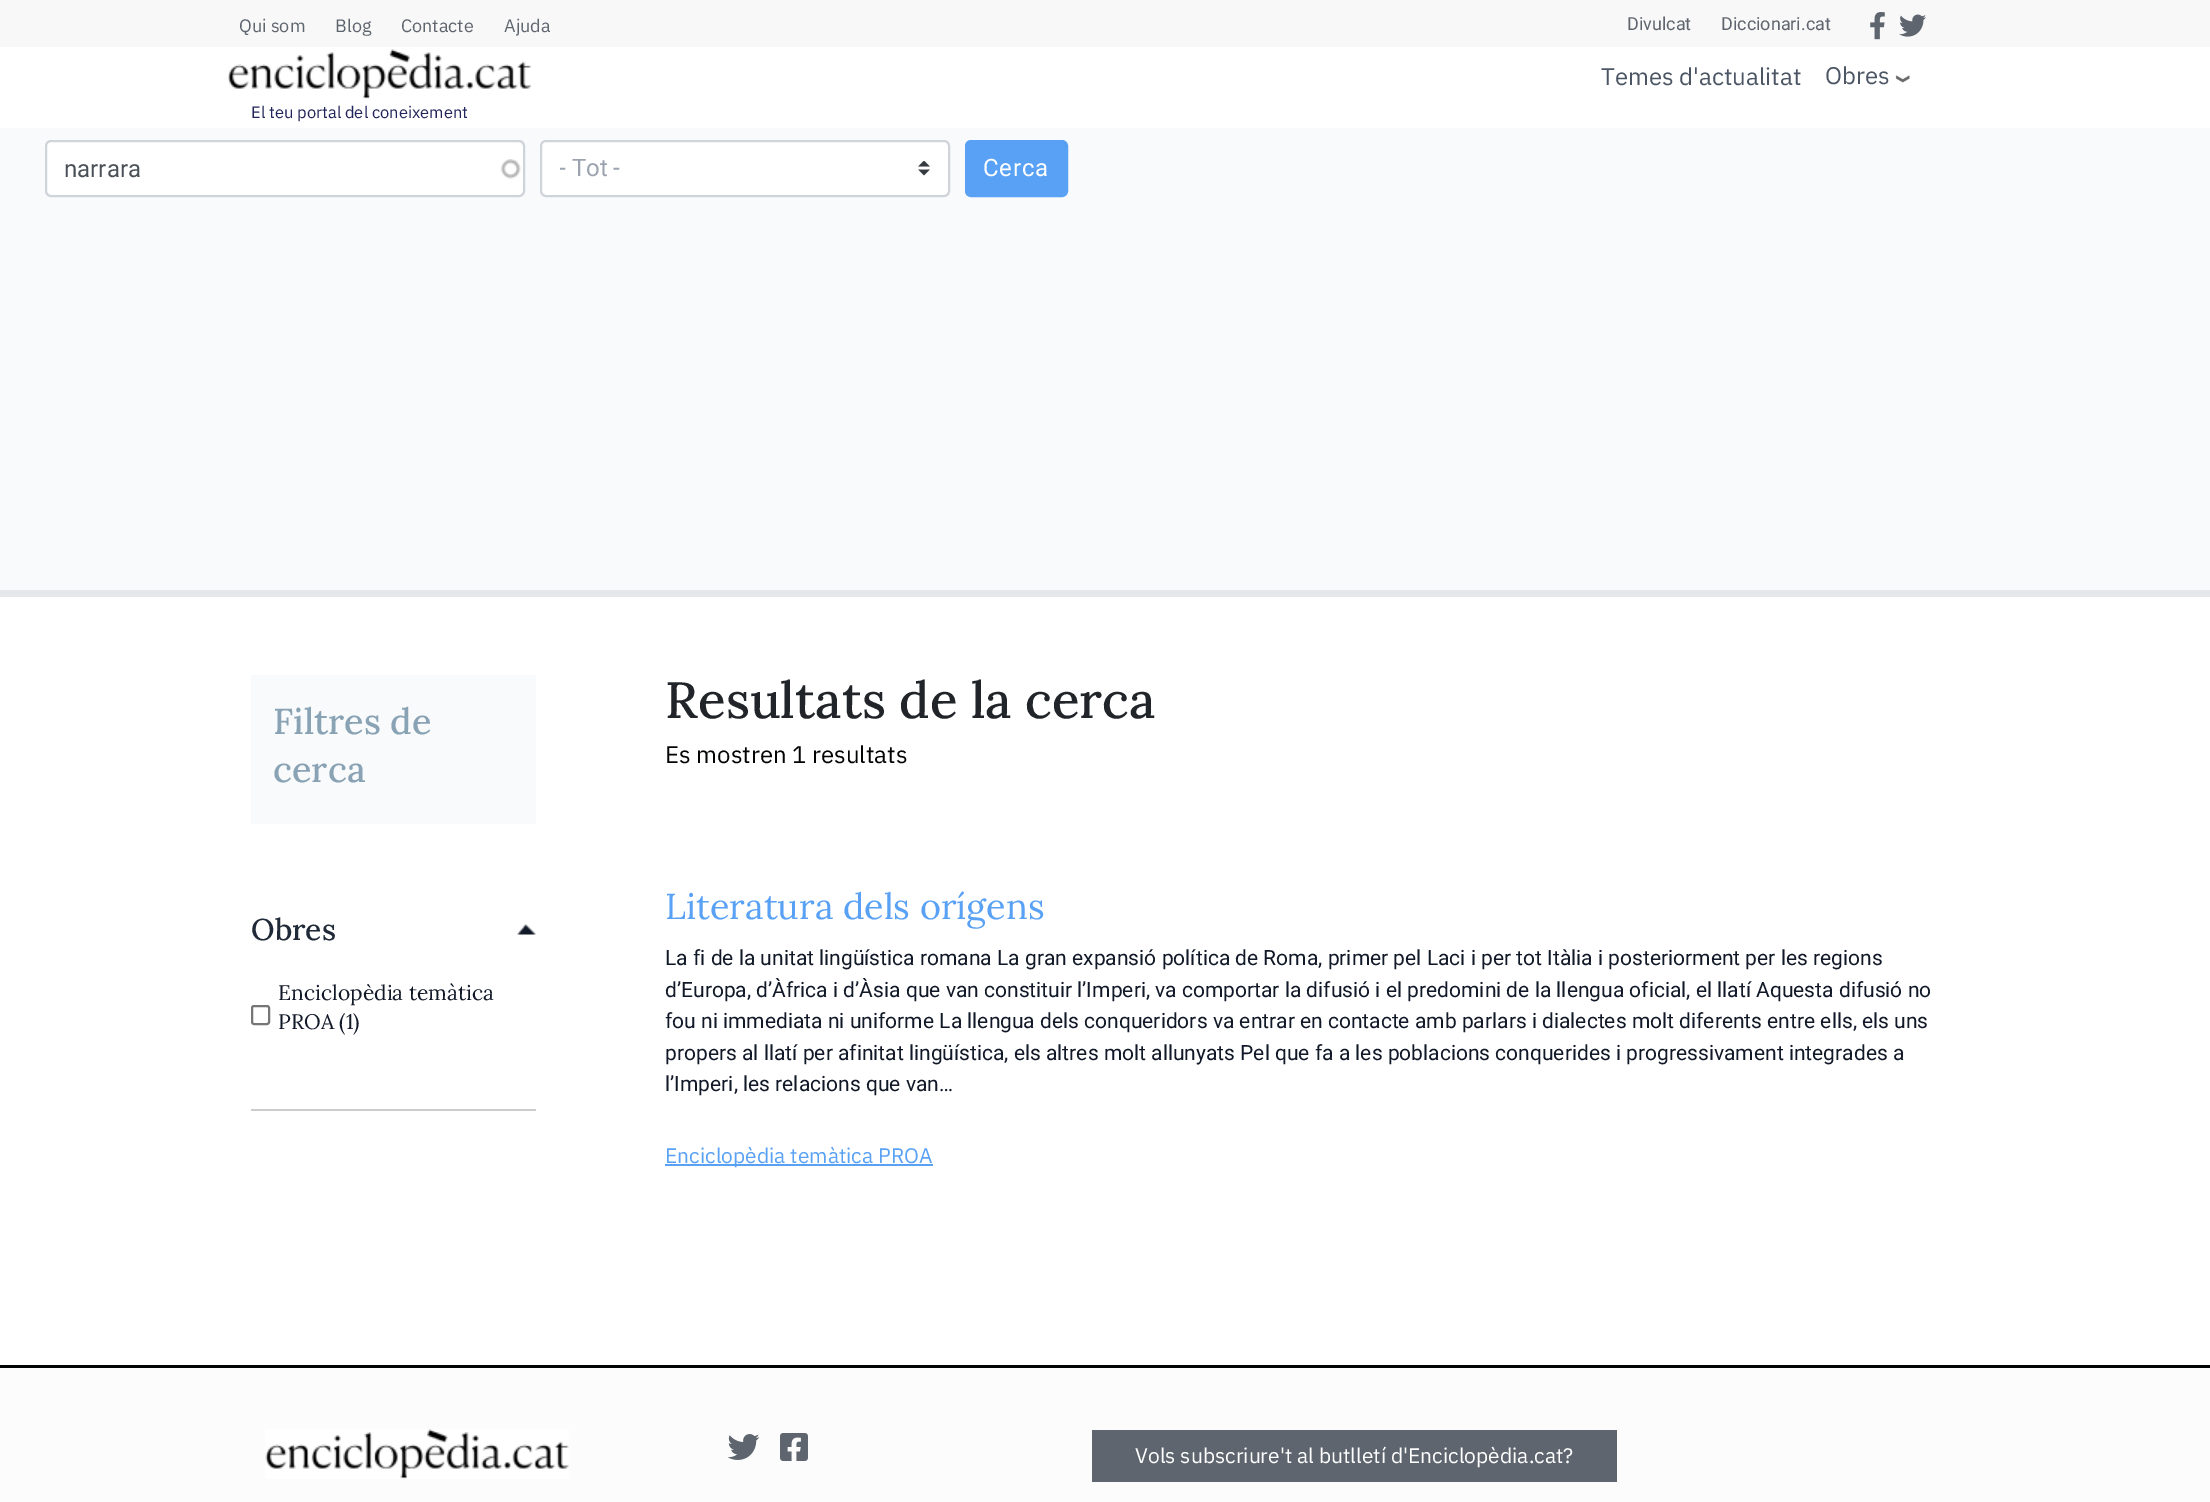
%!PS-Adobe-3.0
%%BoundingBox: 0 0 2210 1502
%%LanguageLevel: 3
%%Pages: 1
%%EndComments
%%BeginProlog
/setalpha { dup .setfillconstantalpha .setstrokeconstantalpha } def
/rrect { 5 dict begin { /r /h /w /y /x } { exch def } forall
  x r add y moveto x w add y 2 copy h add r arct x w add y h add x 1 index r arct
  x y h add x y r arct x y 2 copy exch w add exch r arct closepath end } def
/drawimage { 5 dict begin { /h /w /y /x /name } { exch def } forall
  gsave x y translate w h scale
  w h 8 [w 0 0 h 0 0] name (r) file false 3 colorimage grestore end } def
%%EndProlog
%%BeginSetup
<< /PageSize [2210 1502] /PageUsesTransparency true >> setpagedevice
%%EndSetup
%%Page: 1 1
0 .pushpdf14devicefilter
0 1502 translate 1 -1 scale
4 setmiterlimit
1 setgray
0 0 2210 1502 rectfill
0.973 setgray
0 0 2210 47 rectfill
(images/1.raw) 1870 12 15 28 drawimage
(images/2.raw) 1899 14 27 23 drawimage
(images/3.raw) 1895 75 15 8 drawimage
(images/4.raw) 228 49 303 50 drawimage
0.976 0.98 0.984 setrgbcolor
0 128 2210 462 rectfill
0.898 0.906 0.922 setrgbcolor
0 590 2210 7 rectfill
1 setgray
47 141 477 54 5 rrect fill
(images/5.raw) 500 159 21 20 drawimage
0.07 setalpha
0 setgray
newpath 51 142 moveto 519 142 lineto 521 142 524 145 524 147 curveto 524 146 lineto 524 143 522 141 519 141 curveto 52 141 lineto 50 141 48 142 47 144 curveto 48 143 50 142 51 142 curveto closepath fill
1 setalpha
0.808 0.831 0.855 setrgbcolor
2 setlinewidth
46 141 478 55 5 rrect stroke
1 setgray
540 140 410 57 6 rrect fill
(images/6.raw) 918 161 12 15 drawimage
0.808 0.831 0.855 setrgbcolor
541 141 408 55 5 rrect stroke
0.349 0.631 0.957 setrgbcolor
966 141 101 54 5 rrect fill
0.07 setalpha
0 setgray
newpath 970 142 moveto 1062 142 lineto 1067 142 1066 153 1066 154 curveto 1066 193 lineto 1067 192 1067 191 1067 190 curveto 1067 146 lineto 1067 143 1065 141 1062 141 curveto 971 141 lineto 968 141 966 143 966 146 curveto 966 147 lineto 966 145 968 142 970 142 curveto closepath fill
1 setalpha
0.349 0.631 0.957 setrgbcolor
966 141 101 55 5 rrect stroke
0.976 0.98 0.984 setrgbcolor
251 675 285 149 rectfill
0.792 0.8 0.808 setrgbcolor
251 1109 285 2 rectfill
(images/7.raw) 517 924 19 11 drawimage
0.463 setgray
252 1006 17 18 2 rrect stroke
0.349 0.631 0.957 setrgbcolor
665 1164 268 2 rectfill
0.988 setgray
0 1368 2210 134 rectfill
0.008 0.012 0.012 setrgbcolor
0 1365 2210 3 rectfill
(images/8.raw) 265 1429 304 50 drawimage
(images/9.raw) 727 1434 33 26 drawimage
(images/10.raw) 780 1433 28 28 drawimage
0.369 0.396 0.431 setrgbcolor
1092 1430 525 52 rectfill
/IBMPlexSans-Regular [18 0 0 -18 0 0] selectfont
239 32 moveto (Qui som) show
335 32 moveto (Blog) show
401 32 moveto (Contacte) show
504 32 moveto (Ajuda) show
/Roboto-Regular [18 0 0 -18 0 0] selectfont
1627 30 moveto (Divulcat) show
1721 30 moveto (Diccionari.cat) show
/IBMPlexSans-Regular [24 0 0 -24 0 0] selectfont
0.294 0.333 0.388 setrgbcolor
1601 85 moveto (Temes d'actualitat) show
1825 84 moveto (Obres) show
/IBMPlexSans-Regular [16.5 0 0 -16.5 0 0] selectfont
0.129 0.145 0.349 setrgbcolor
251 118 moveto (El teu portal del coneixement) show
/Roboto-Regular [24 0 0 -24 0 0] selectfont
0.286 0.314 0.341 setrgbcolor
64 177 moveto (narrara) show
gsave
560 150 346 36 rectclip
0.612 0.639 0.686 setrgbcolor
559 176 moveto (- Tot -) show
grestore
1 setgray
983 176 moveto 0.75 0 (Cerca) ashow
/Lora-Medium [36 0 0 -36 0 0] selectfont
0.537 0.639 0.71 setrgbcolor
273 734 moveto (Filtres de) show
273 782 moveto (cerca) show
/Lora-Medium [30 0 0 -30 0 0] selectfont
0.122 0.161 0.216 setrgbcolor
251 940 moveto (Obres) show
/Lora-Regular [21 0 0 -21 0 0] selectfont
0.067 0.094 0.153 setrgbcolor
278 1000 moveto (Enciclopèdia temàtica) show
278 1029 moveto (PROA \(1\)) show
/Lora-Medium [51 0 0 -51 0 0] selectfont
0.129 0.145 0.161 setrgbcolor
665 718 moveto (Resultats de la cerca) show
/IBMPlexSans-Regular [24 0 0 -24 0 0] selectfont
0.008 0.012 0.012 setrgbcolor
665 763 moveto (Es mostren 1 resultats) show
/Lora-Regular [36 0 0 -36 0 0] selectfont
0.349 0.631 0.957 setrgbcolor
665 919 moveto (Literatura dels orígens) show
/Roboto-Regular [21 0 0 -21 0 0] selectfont
0.067 0.094 0.153 setrgbcolor
665 965 moveto (La fi de la unitat lingüística romana La gran expansió política de Roma, primer pel Laci i per tot Itàlia i posteriorment per les regions) show
665 997 moveto (d’Europa, d’Àfrica i d’Àsia que van constituir l’Imperi, va comportar la difusió i el predomini de la llengua oficial, el llatí Aquesta difusió no) show
665 1028 moveto (fou ni immediata ni uniforme La llengua dels conqueridors va entrar en contacte amb parlars i dialectes molt diferents entre ells, els uns) show
665 1060 moveto (propers al llatí per afinitat lingüística, els altres molt allunyats Pel que fa a les poblacions conquerides i progressivament integrades a) show
665 1091 moveto (l’Imperi, les relacions que van…) show
/IBMPlexSans-Regular [21 0 0 -21 0 0] selectfont
0.349 0.631 0.957 setrgbcolor
665 1163 moveto (Enciclopèdia temàtica PROA) show
1 setgray
1135 1463 moveto (Vols subscriure't al butlletí d'Enciclopèdia.cat?) show
.poppdf14devicefilter showpage
%%EOF
